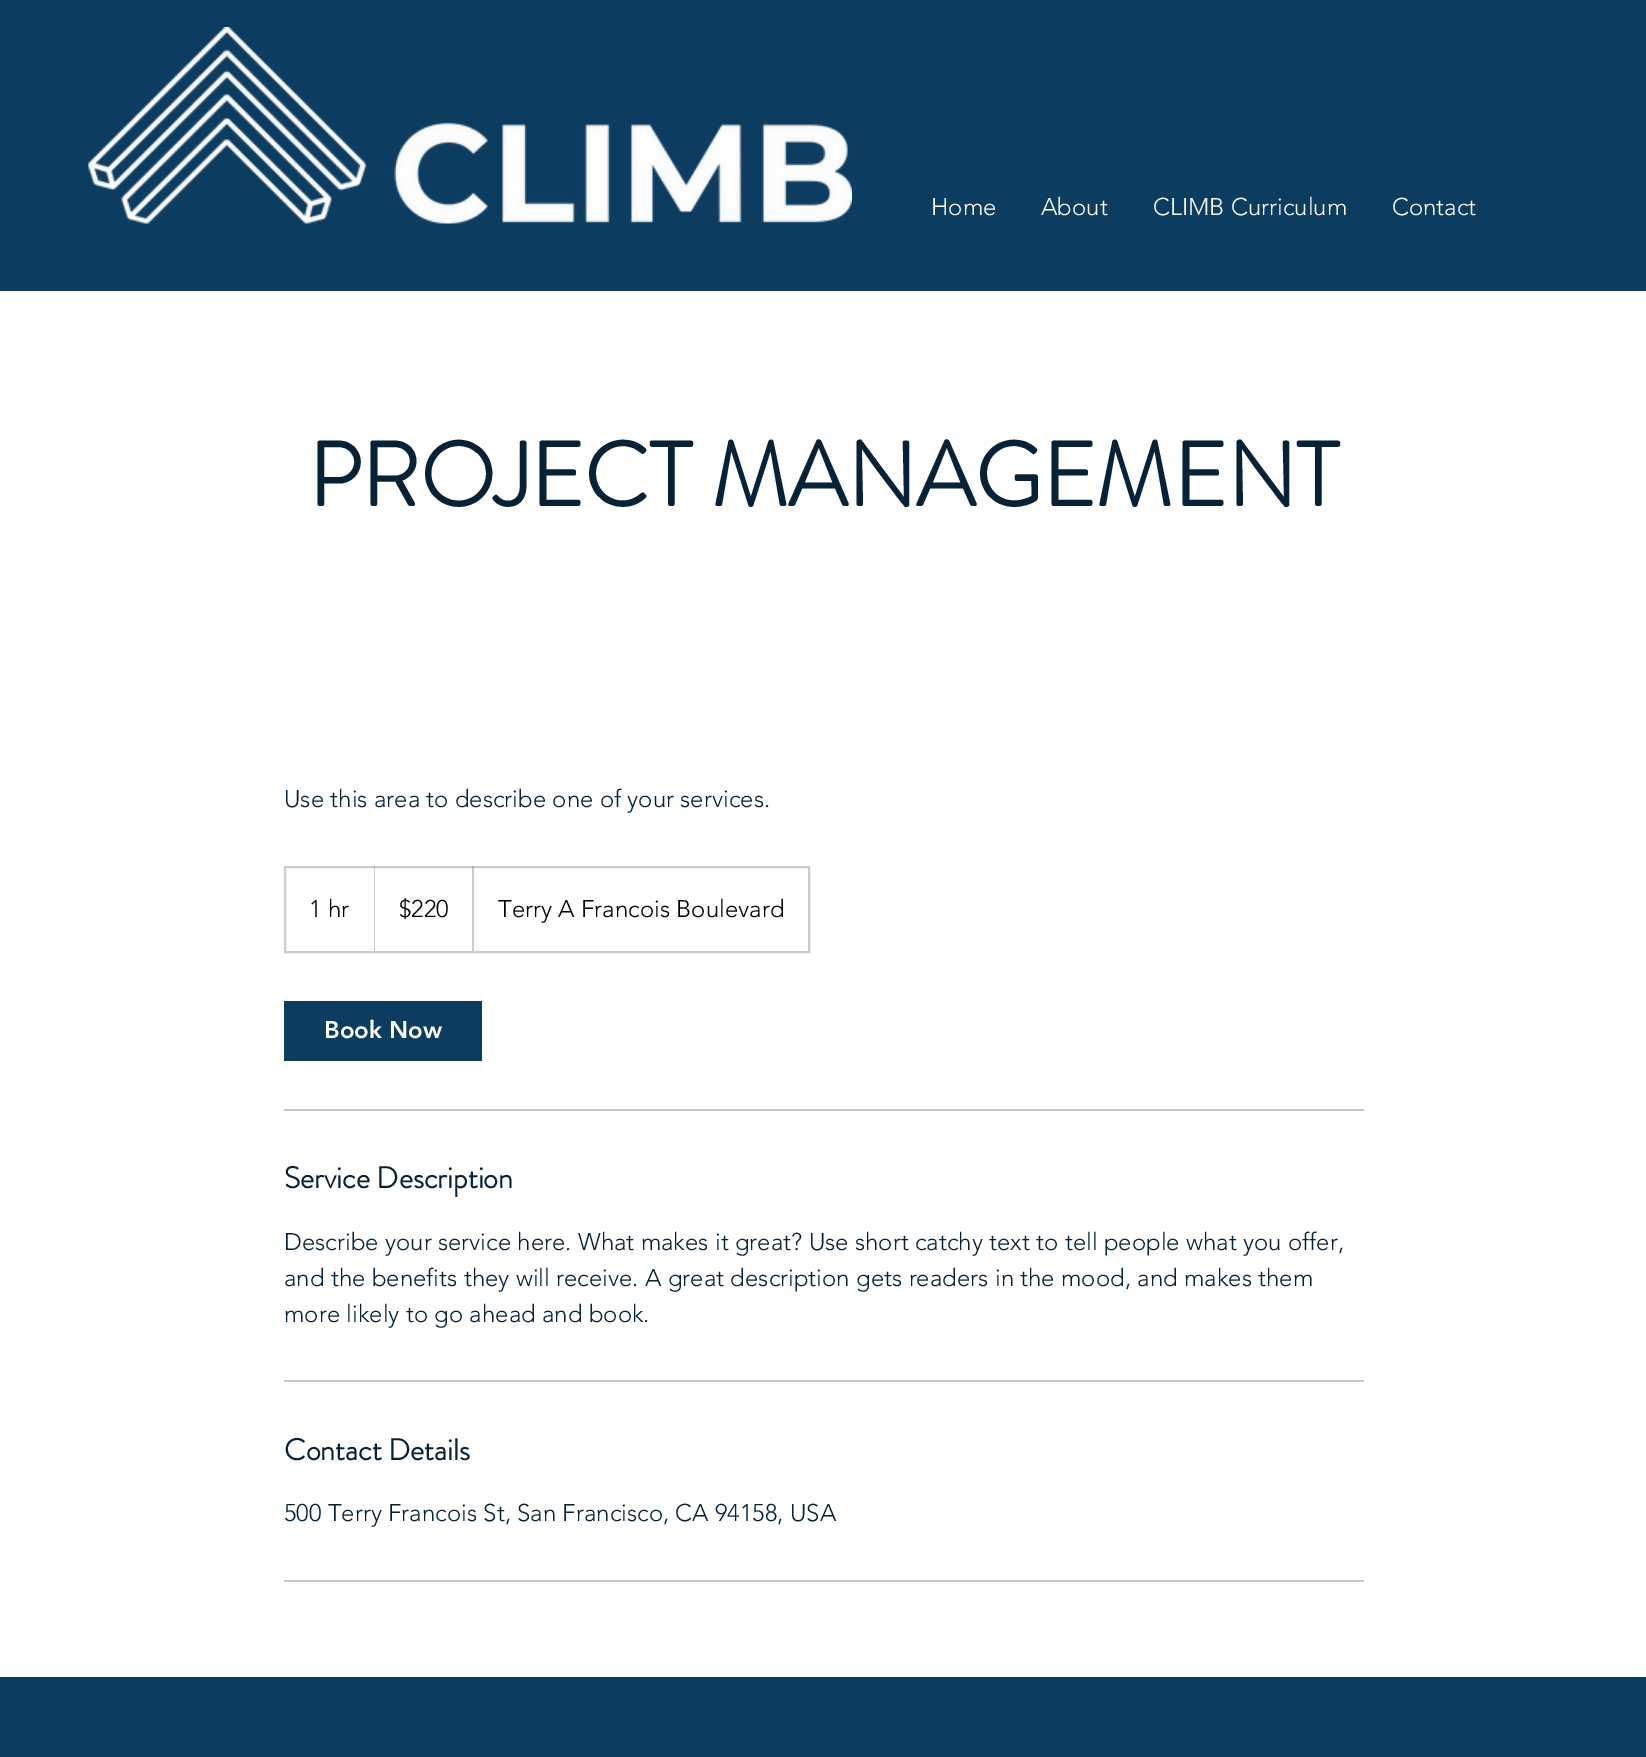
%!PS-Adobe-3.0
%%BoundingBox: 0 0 1646 1757
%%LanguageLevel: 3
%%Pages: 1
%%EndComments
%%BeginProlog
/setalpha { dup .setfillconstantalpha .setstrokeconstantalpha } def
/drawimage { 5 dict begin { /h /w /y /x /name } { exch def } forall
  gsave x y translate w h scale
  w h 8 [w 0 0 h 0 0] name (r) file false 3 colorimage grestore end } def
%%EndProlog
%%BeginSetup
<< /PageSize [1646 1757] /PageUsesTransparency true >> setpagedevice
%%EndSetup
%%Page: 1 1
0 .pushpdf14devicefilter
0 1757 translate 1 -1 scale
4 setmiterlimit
1 setgray
0 0 1646 1757 rectfill
0.047 0.235 0.376 setrgbcolor
0 0 1646 291 rectfill
(images/1.raw) 88 27 764 197 drawimage
0.8 setgray
2 setlinewidth
285 867 524 85 rectstroke
0.2 setalpha
0 setgray
newpath 374 951 moveto 374 866 lineto 375 867 lineto 375 951 lineto closepath fill
newpath 472 951 moveto 472 866 lineto 474 867 lineto 474 951 lineto closepath fill
1 setalpha
0.047 0.235 0.376 setrgbcolor
284 1001 198 60 rectfill
0.78 setgray
284 1109 1080 2 rectfill
284 1380 1080 2 rectfill
284 1580 1080 2 rectfill
0.047 0.235 0.376 setrgbcolor
0 1677 1646 80 rectfill
/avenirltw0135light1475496-Light [24 0 0 -24 0 0] selectfont
1 setgray
931 215 moveto (Home) show
1041 215 moveto (About) show
1153 215 moveto (CLIMB Curriculum) show
1392 215 moveto (Contact) show
/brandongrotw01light-Bold [90 0 0 -90 0 0] selectfont
0.027 0.129 0.212 setrgbcolor
308 506 moveto (PROJECT MANAGEMENT) show
/avenirltw0135light1475496-Light [24 0 0 -24 0 0] selectfont
284 807 moveto (Use this area to describe one of your services.) show
0 setgray
309 917 moveto (1 hr) show
399 917 moveto ($220) show
498 917 moveto (Terry A Francois Boulevard) show
/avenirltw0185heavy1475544-Black [24 0 0 -24 0 0] selectfont
1 setgray
324 1038 moveto (Book Now) show
/brandongrotw01light-Bold [30 0 0 -30 0 0] selectfont
0.027 0.129 0.212 setrgbcolor
284 1188 moveto (Service Description) show
/avenirltw0135light1475496-Light [24 0 0 -24 0 0] selectfont
284 1250 moveto (Describe your service here. What makes it great? Use short catchy text to tell people what you offer,) show
284 1286 moveto (and the benefits they will receive. A great description gets readers in the mood, and makes them) show
284 1322 moveto (more likely to go ahead and book.) show
/brandongrotw01light-Bold [30 0 0 -30 0 0] selectfont
284 1460 moveto (Contact Details) show
/avenirltw0135light1475496-Light [24 0 0 -24 0 0] selectfont
284 1521 moveto (500 Terry Francois St, San Francisco, CA 94158, USA) show
.poppdf14devicefilter showpage
%%EOF
